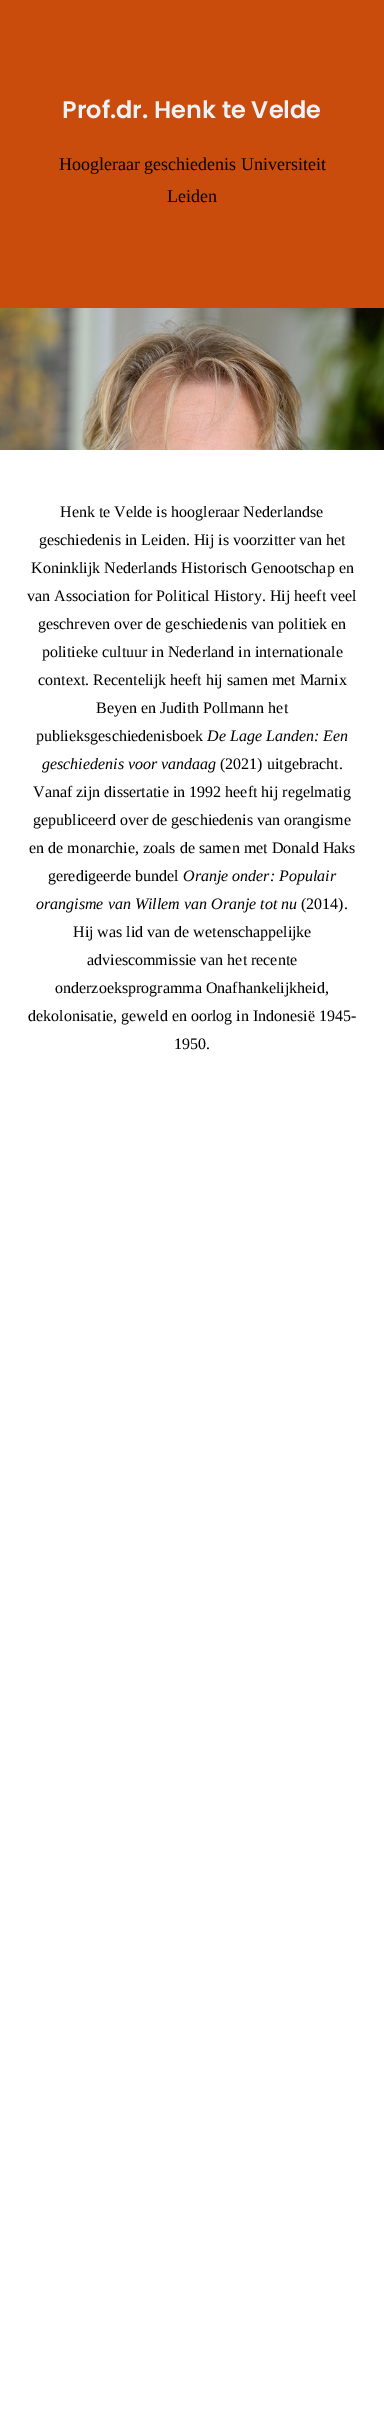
%!PS-Adobe-3.0
%%BoundingBox: 0 0 384 2418
%%LanguageLevel: 3
%%Pages: 1
%%EndComments
%%BeginProlog
/drawimage { 5 dict begin { /h /w /y /x /name } { exch def } forall
  gsave x y translate w h scale
  w h 8 [w 0 0 h 0 0] name (r) file false 3 colorimage grestore end } def
%%EndProlog
%%BeginSetup
<< /PageSize [384 2418] >> setpagedevice
%%EndSetup
%%Page: 1 1
0 2418 translate 1 -1 scale
4 setmiterlimit
1 setgray
0 0 384 2418 rectfill
0.792 0.298 0.047 setrgbcolor
0 0 384 308 rectfill
(images/1.raw) 0 308 384 142 drawimage
/Poppins-SemiBold [24 0 0 -24 0 0] selectfont
0.929 0.949 0.969 setrgbcolor
62 118 moveto (Prof.dr. Henk te Velde) show
/LiberationSerif-Regular [18 0 0 -18 0 0] selectfont
0 setgray
59 170 moveto (Hoogleraar geschiedenis Universiteit) show
167 202 moveto (Leiden) show
/LiberationSerif-Regular [16 0 0 -16 0 0] selectfont
60 517 moveto (Henk te Velde is hoogleraar Nederlandse) show
39 545 moveto (geschiedenis in Leiden. Hij is voorzitter van het) show
31 573 moveto (Koninklijk Nederlands Historisch Genootschap en) show
27 601 moveto (van Association for Political History. Hij heeft veel) show
38 629 moveto (geschreven over de geschiedenis van politiek en) show
42 657 moveto (politieke cultuur in Nederland in internationale) show
38 685 moveto (context. Recentelijk heeft hij samen met Marnix) show
96 713 moveto (Beyen en Judith Pollmann het) show
36 741 moveto (publieksgeschiedenisboek) show
/LiberationSerif-Italic [16 0 0 -16 0 0] selectfont
207 741 moveto (De Lage Landen: Een) show
42 769 moveto (geschiedenis voor vandaag) show
/LiberationSerif-Regular [16 0 0 -16 0 0] selectfont
220 769 moveto (\(2021\) uitgebracht.) show
33 797 moveto (Vanaf zijn dissertatie in 1992 heeft hij regelmatig) show
33 825 moveto (gepubliceerd over de geschiedenis van orangisme) show
29 853 moveto (en de monarchie, zoals de samen met Donald Haks) show
48 881 moveto (geredigeerde bundel) show
/LiberationSerif-Italic [16 0 0 -16 0 0] selectfont
183 881 moveto (Oranje onder: Populair) show
36 909 moveto (orangisme van Willem van Oranje tot nu) show
/LiberationSerif-Regular [16 0 0 -16 0 0] selectfont
301 909 moveto (\(2014\).) show
73 937 moveto (Hij was lid van de wetenschappelijke) show
87 965 moveto (adviescommissie van het recente) show
55 993 moveto (onderzoeksprogramma Onafhankelijkheid,) show
28 1021 moveto (dekolonisatie, geweld en oorlog in Indonesië 1945-) show
174 1049 moveto (1950.) show
showpage
%%EOF
